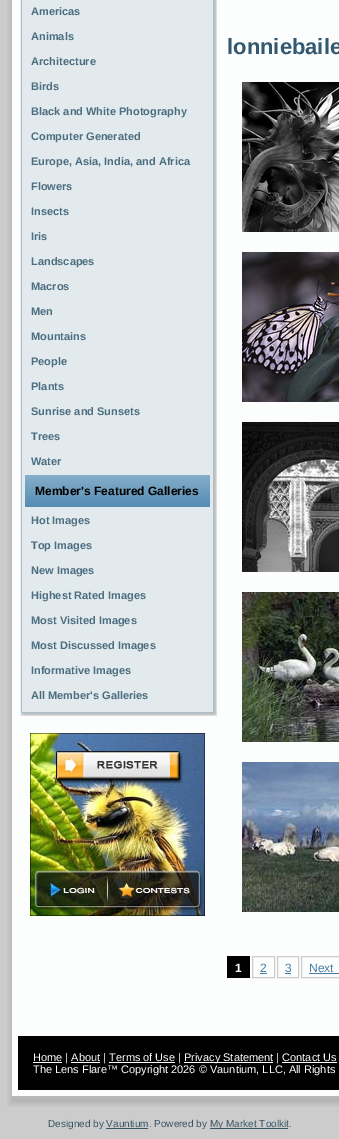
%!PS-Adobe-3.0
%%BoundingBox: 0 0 339 1139
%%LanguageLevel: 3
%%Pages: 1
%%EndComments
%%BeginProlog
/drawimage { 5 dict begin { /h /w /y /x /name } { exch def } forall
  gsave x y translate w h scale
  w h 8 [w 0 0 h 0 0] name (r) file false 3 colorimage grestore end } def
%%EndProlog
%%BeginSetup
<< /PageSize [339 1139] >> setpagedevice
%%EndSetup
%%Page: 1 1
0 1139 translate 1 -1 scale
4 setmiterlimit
0.8 setgray
0 0 339 1139 rectfill
(images/1.raw) 7 0 47 1054 drawimage
0.988 0.992 0.992 setrgbcolor
54 0 285 1036 rectfill
(images/2.raw) 7 1054 47 53 drawimage
(images/3.raw) 20 0 11 703 drawimage
0.886 0.918 0.933 setrgbcolor
31 0 173 703 rectfill
(images/4.raw) 204 0 13 703 drawimage
(images/5.raw) 25 475 185 32 drawimage
(images/6.raw) 20 703 11 13 drawimage
(images/7.raw) 31 703 173 13 drawimage
(images/8.raw) 204 703 13 13 drawimage
(images/9.raw) 30 733 175 183 drawimage
(images/10.raw) 242 82 97 150 drawimage
(images/11.raw) 242 252 97 150 drawimage
(images/12.raw) 242 422 97 150 drawimage
(images/13.raw) 242 592 97 150 drawimage
(images/14.raw) 242 762 97 150 drawimage
0 setgray
227 956 23 22 rectfill
0.8 setgray
252.5 956.5 22 21 rectstroke
0.286 0.494 0.635 setrgbcolor
260 973 7 1 rectfill
0.8 setgray
277.5 956.5 21 21 rectstroke
0.286 0.494 0.635 setrgbcolor
285 973 6 1 rectfill
0.8 setgray
301.5 956.5 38 21 rectstroke
0.286 0.494 0.635 setrgbcolor
309 973 30 1 rectfill
0 setgray
18 1036 321 54 rectfill
1 setgray
33 1062 29 1 rectfill
184 1062 89 1 rectfill
71 1062 29 1 rectfill
109 1062 66 1 rectfill
282 1062 55 1 rectfill
(images/15.raw) 54 1090 285 17 drawimage
0.22 0.329 0.4 setrgbcolor
210 1128 78 1 rectfill
106 1128 42 1 rectfill
/LiberationSans-Bold [11 0 0 -11 0 0] selectfont
0.302 0.431 0.502 setrgbcolor
31 15 moveto (Americas) show
31 40 moveto (Animals) show
31 65 moveto (Architecture) show
31 90 moveto (Birds) show
31 115 moveto (Black and White Photography) show
31 140 moveto (Computer Generated) show
31 165 moveto (Europe, Asia, India, and Africa) show
31 190 moveto (Flowers) show
31 215 moveto (Insects) show
31 240 moveto (Iris) show
31 265 moveto (Landscapes) show
31 290 moveto (Macros) show
31 315 moveto (Men) show
31 340 moveto (Mountains) show
31 365 moveto (People) show
31 390 moveto (Plants) show
31 415 moveto (Sunrise and Sunsets) show
31 440 moveto (Trees) show
31 465 moveto (Water) show
/LiberationSans-Bold [12 0 0 -12 0 0] selectfont
0 setgray
35 495 moveto (Member's Featured Galleries) show
/LiberationSans-Bold [11 0 0 -11 0 0] selectfont
0.302 0.431 0.502 setrgbcolor
31 524 moveto (Hot Images) show
31 549 moveto (Top Images) show
31 574 moveto (New Images) show
31 599 moveto (Highest Rated Images) show
31 624 moveto (Most Visited Images) show
31 649 moveto (Most Discussed Images) show
31 674 moveto (Informative Images) show
31 699 moveto (All Member's Galleries) show
/LiberationSans-Bold [22 0 0 -22 0 0] selectfont
0.2 0.345 0.443 setrgbcolor
227 54 moveto (lonniebaile) show
/LiberationSans-Bold [12 0 0 -12 0 0] selectfont
1 setgray
235 972 moveto (1) show
/LiberationSans-Regular [12 0 0 -12 0 0] selectfont
0.286 0.494 0.635 setrgbcolor
260 972 moveto (2) show
285 972 moveto (3) show
309 972 moveto (Next) show
/LiberationSans-Regular [11 0 0 -11 0 0] selectfont
1 setgray
33 1061 moveto (Home | About | Terms of Use |) show
184 1061 moveto (Privacy Statement | Contact Us) show
33 1073 moveto (The Lens Flare™ Copyright 2026 © Vauntium, LLC, All Rights) show
/LiberationSans-Regular [10 0 0 -10 0 0] selectfont
0.22 0.329 0.4 setrgbcolor
48 1127 moveto (Designed by Vauntium. Powered by) show
210 1127 moveto (My Market Toolkit.) show
showpage
%%EOF
